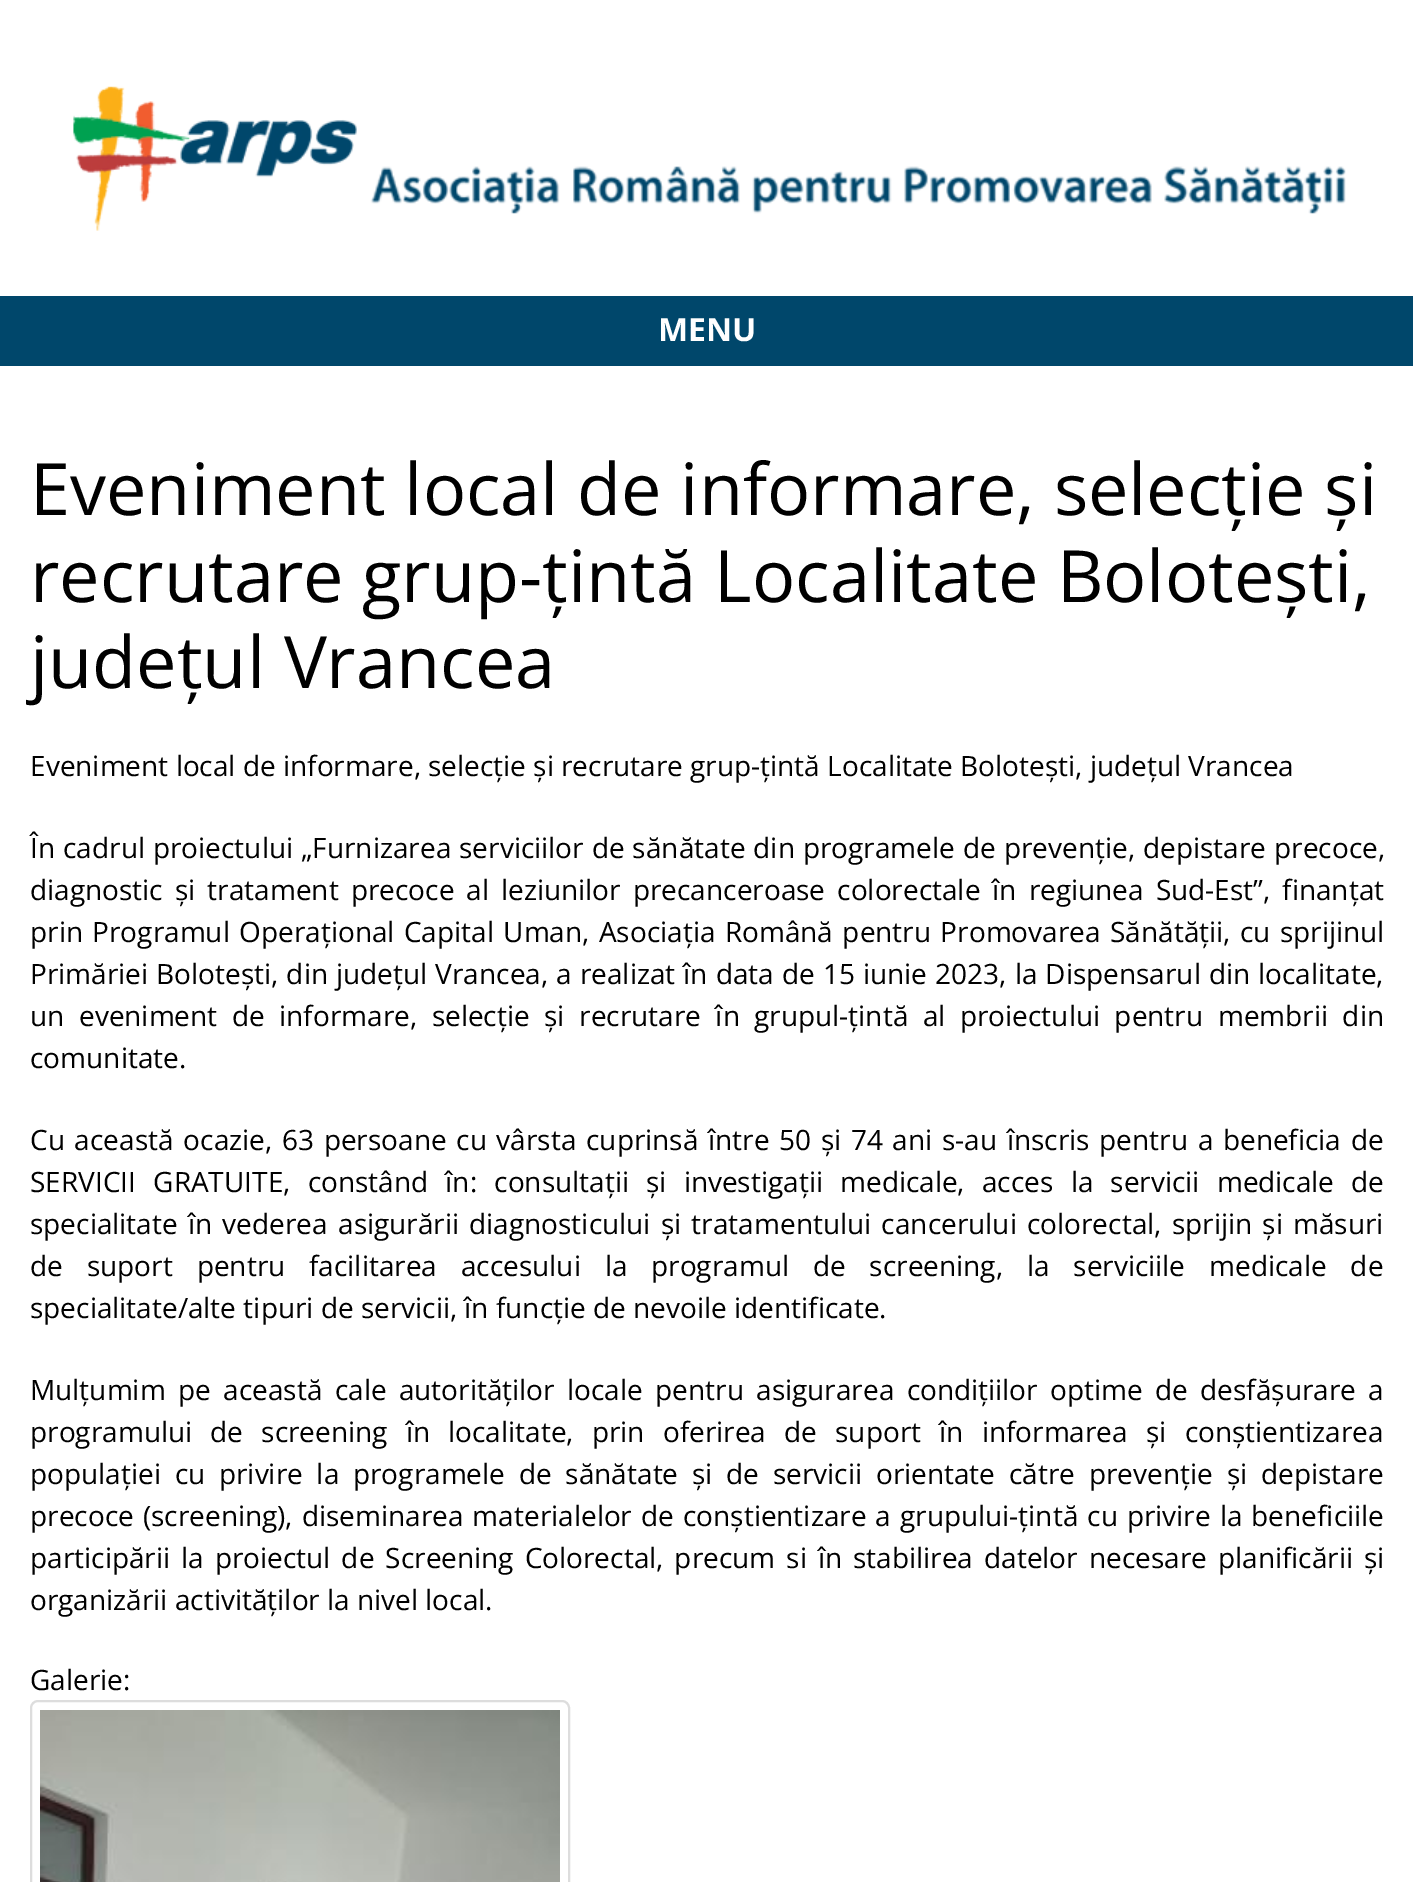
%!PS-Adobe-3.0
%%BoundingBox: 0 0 1413 1882
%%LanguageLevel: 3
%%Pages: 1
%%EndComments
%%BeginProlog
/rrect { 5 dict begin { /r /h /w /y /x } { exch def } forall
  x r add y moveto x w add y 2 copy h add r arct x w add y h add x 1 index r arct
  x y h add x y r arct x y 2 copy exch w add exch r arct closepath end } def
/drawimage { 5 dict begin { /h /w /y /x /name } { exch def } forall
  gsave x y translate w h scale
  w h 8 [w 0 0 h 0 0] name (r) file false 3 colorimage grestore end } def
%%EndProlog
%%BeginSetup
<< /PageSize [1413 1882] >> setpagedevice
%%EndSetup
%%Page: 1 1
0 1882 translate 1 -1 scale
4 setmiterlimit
1 setgray
0 0 1413 1882 rectfill
(images/1.raw) 73 86 1273 145 drawimage
0 0.278 0.42 setrgbcolor
0 296 1413 70 rectfill
0.867 setgray
2 setlinewidth
31 1701 538 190 7 rrect stroke
(images/2.raw) 40 1710 520 172 drawimage
/OpenSans-Bold [32 0 0 -32 0 0] selectfont
1 setgray
658 341 moveto (MENU) show
/OpenSans-Regular [72 0 0 -72 0 0] selectfont
0 setgray
30 515 moveto (Eveniment local de informare, selecție și) show
30 602 moveto (recrutare grup-țintă Localitate Bolotești,) show
30 688 moveto (județul Vrancea) show
/OpenSans-Regular [28 0 0 -28 0 0] selectfont
30 776 moveto (Eveniment local de informare, selecție și recrutare grup-țintă Localitate Bolotești, județul Vrancea) show
30 858 moveto 0.75 0 32 (În cadrul proiectului „Furnizarea serviciilor de sănătate din programele de prevenție, depistare precoce,) widthshow
30 900 moveto 4.75 0 32 (diagnostic și tratament precoce al leziunilor precanceroase colorectale în regiunea Sud-Est”, finanțat) widthshow
30 942 moveto 2.1 0 32 (prin Programul Operațional Capital Uman, Asociația Română pentru Promovarea Sănătății, cu sprijinul) widthshow
30 984 moveto 0.8 0 32 (Primăriei Bolotești, din județul Vrancea, a realizat în data de 15 iunie 2023, la Dispensarul din localitate,) widthshow
30 1026 moveto 7.25 0 32 (un eveniment de informare, selecție și recrutare în grupul-țintă al proiectului pentru membrii din) widthshow
30 1068 moveto (comunitate.) show
30 1150 moveto 2.4 0 32 (Cu această ocazie, 63 persoane cu vârsta cuprinsă între 50 și 74 ani s-au înscris pentru a beneficia de) widthshow
30 1192 moveto 9.9 0 32 (SERVICII GRATUITE, constând în: consultații și investigații medicale, acces la servicii medicale de) widthshow
30 1234 moveto 3 0 32 (specialitate în vederea asigurării diagnosticului și tratamentului cancerului colorectal, sprijin și măsuri) widthshow
30 1276 moveto 16.6 0 32 (de suport pentru facilitarea accesului la programul de screening, la serviciile medicale de) widthshow
30 1318 moveto (specialitate/alte tipuri de servicii, în funcție de nevoile identificate.) show
30 1400 moveto 5.1 0 32 (Mulțumim pe această cale autorităților locale pentru asigurarea condițiilor optime de desfășurare a) widthshow
30 1442 moveto 10.9 0 32 (programului de screening în localitate, prin oferirea de suport în informarea și conștientizarea) widthshow
30 1484 moveto 6.5 0 32 (populației cu privire la programele de sănătate și de servicii orientate către prevenție și depistare) widthshow
30 1526 moveto 1.75 0 32 (precoce \(screening\), diseminarea materialelor de conștientizare a grupului-țintă cu privire la beneficiile) widthshow
30 1568 moveto 3.75 0 32 (participării la proiectul de Screening Colorectal, precum si în stabilirea datelor necesare planificării și) widthshow
30 1610 moveto (organizării activităților la nivel local.) show
30 1690 moveto (Galerie:) show
showpage
%%EOF
